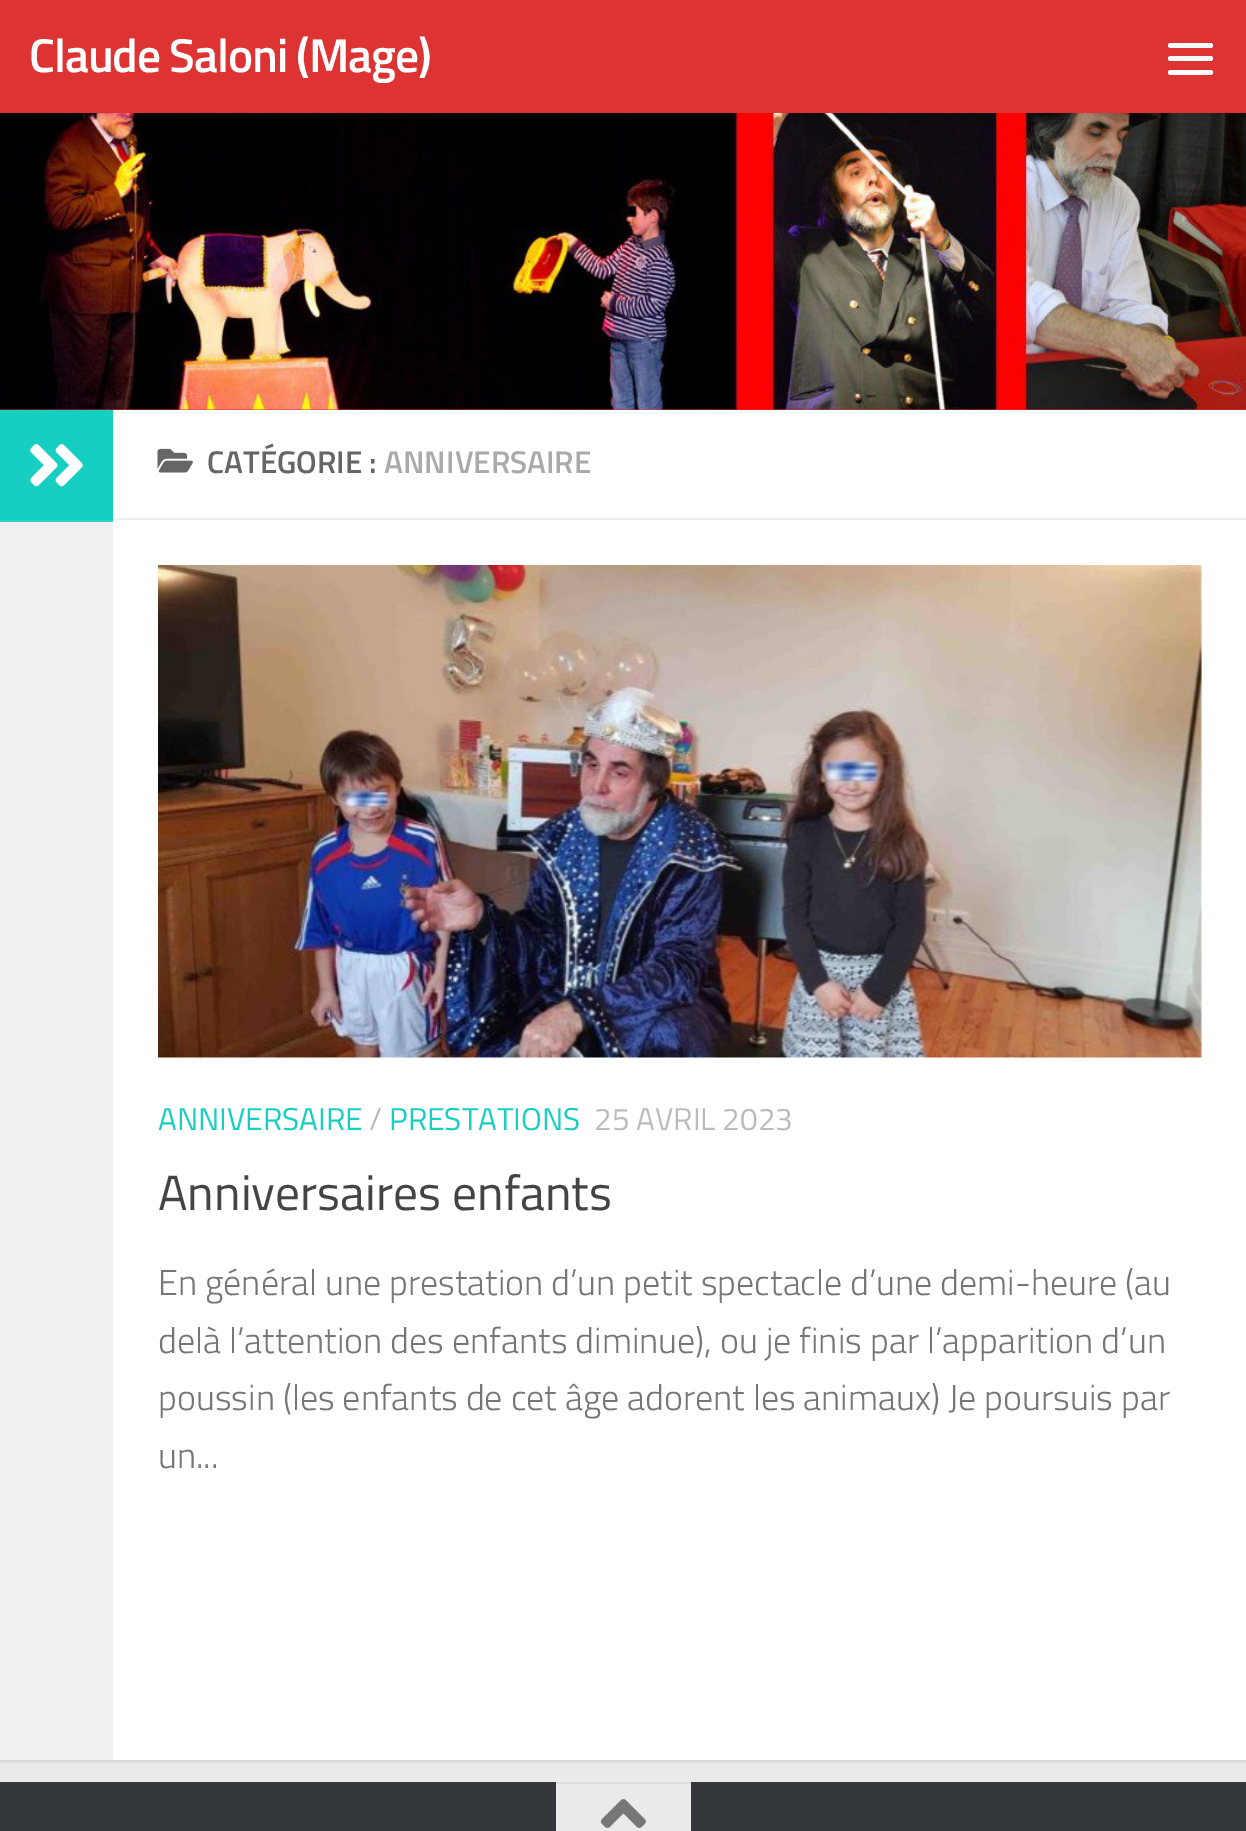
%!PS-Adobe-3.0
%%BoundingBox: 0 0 1246 1831
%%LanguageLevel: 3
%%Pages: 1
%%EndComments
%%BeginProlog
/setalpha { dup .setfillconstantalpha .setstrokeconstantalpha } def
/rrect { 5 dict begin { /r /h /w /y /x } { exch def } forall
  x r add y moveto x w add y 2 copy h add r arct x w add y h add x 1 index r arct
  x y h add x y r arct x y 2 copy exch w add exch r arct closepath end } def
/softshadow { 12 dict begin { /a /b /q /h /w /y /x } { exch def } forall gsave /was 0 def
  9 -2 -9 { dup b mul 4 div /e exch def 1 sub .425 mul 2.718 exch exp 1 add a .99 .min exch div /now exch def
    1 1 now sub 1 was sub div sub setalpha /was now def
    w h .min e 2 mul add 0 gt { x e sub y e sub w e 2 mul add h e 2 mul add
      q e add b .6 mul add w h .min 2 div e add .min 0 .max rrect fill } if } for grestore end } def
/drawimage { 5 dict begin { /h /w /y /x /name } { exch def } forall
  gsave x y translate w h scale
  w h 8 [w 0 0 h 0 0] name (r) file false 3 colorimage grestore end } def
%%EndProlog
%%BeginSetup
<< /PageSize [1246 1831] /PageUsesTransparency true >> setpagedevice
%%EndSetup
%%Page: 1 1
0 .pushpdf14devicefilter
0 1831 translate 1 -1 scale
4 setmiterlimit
0.918 setgray
0 0 1246 1831 rectfill
0 setgray
0 412 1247 1350 0 1 0.1 softshadow
0.867 0.2 0.2 setrgbcolor
0 409 1246 1 rectfill
0 0 1246 113 rectfill
1 setgray
1168 43 45 5 2.5 rrect fill
1168 56 45 5 2.5 rrect fill
1168 70 45 5 2.5 rrect fill
(images/1.raw) 0 113 1246 297 drawimage
113 410 1133 1350 rectfill
0.941 setgray
0 522 113 1238 rectfill
0.086 0.812 0.757 setrgbcolor
0 410 113 110 rectfill
0.176 0.831 0.78 setrgbcolor
0 520 113 2 rectfill
(images/2.raw) 30 444 53 43 drawimage
0.933 setgray
113 518 1133 2 rectfill
(images/3.raw) 157 448 36 25 drawimage
(images/4.raw) 158 565 1044 493 drawimage
0.2 0.212 0.231 setrgbcolor
0 1782 1246 49 rectfill
0.918 setgray
556 1784 135 47 rectfill
0.871 setgray
556 1782 135 2 rectfill
(images/5.raw) 600 1799 46 29 drawimage
/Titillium-SemiBold [47.5 0 0 -47.5 0 0] selectfont
1 setgray
29 72 moveto -1.1 0 (Claude Saloni \(Mage\)) ashow
/Titillium-SemiBold [31.5 0 0 -31.5 0 0] selectfont
0.4 setgray
207 473 moveto (CATÉGORIE :) show
0.667 setgray
384 473 moveto (ANNIVERSAIRE) show
/Titillium-Regular [31.5 0 0 -31.5 0 0] selectfont
0.086 0.812 0.757 setrgbcolor
158 1130 moveto (ANNIVERSAIRE) show
0.733 setgray
369 1130 moveto (/) show
0.086 0.812 0.757 setrgbcolor
389 1130 moveto (PRESTATIONS) show
0.733 setgray
594 1130 moveto (25 AVRIL 2023) show
/Titillium-Regular [49.5 0 0 -49.5 0 0] selectfont
0.267 setgray
158 1210 moveto (Anniversaires enfants) show
/Titillium-Light [36 0 0 -36 0 0] selectfont
0.463 setgray
158 1295 moveto (En général une prestation d’un petit spectacle d’une demi-heure \(au) show
158 1353 moveto (delà l’attention des enfants diminue\), ou je finis par l’apparition d’un) show
158 1410 moveto (poussin \(les enfants de cet âge adorent les animaux\) Je poursuis par) show
158 1468 moveto (un...) show
.poppdf14devicefilter showpage
%%EOF
